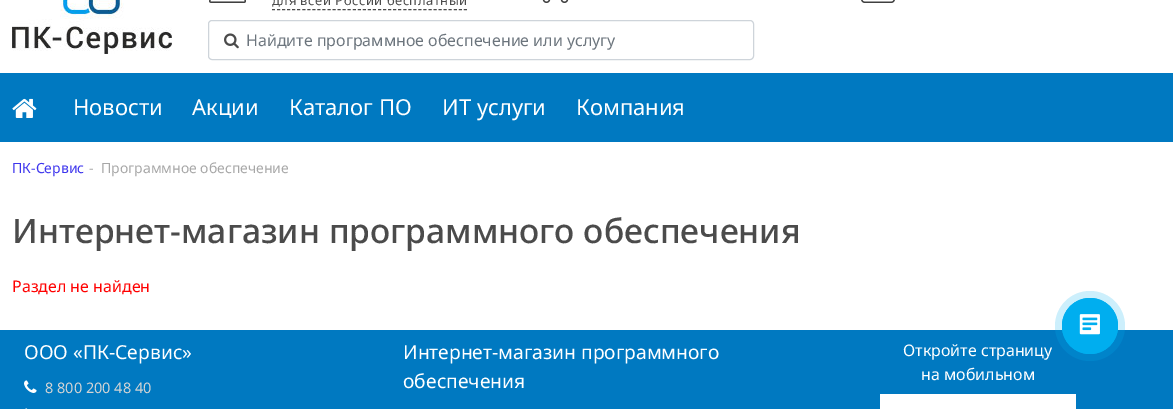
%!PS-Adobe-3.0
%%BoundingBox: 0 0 1173 409
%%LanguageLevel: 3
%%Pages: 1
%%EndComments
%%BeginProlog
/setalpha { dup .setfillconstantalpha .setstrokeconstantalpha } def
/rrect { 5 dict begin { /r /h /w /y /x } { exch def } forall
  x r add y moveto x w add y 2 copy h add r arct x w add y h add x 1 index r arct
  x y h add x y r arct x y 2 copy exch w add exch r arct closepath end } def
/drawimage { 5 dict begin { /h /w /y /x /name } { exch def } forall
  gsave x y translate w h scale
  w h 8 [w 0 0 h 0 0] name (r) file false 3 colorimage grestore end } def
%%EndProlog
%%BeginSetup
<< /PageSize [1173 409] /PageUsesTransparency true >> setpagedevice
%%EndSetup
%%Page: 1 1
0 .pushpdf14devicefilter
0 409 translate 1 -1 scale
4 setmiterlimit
1 setgray
0 0 1173 409 rectfill
(images/1.raw) 12 0 160 54 drawimage
(images/2.raw) 209 0 37 3 drawimage
0.294 setgray
[3 2.05] 0 setdash
newpath 272 9.5 moveto 467 9.5 lineto stroke
(images/3.raw) 542 0 27 3 drawimage
(images/4.raw) 861 0 34 3 drawimage
0.808 0.831 0.855 setrgbcolor
[] 0 setdash
208.5 20.5 545 39 3.5 rrect stroke
(images/5.raw) 224 33 15 16 drawimage
0 0.475 0.757 setrgbcolor
0 73 1173 69 rectfill
(images/6.raw) 12 98 25 20 drawimage
0 330 1173 79 rectfill
(images/7.raw) 24 380 13 13 drawimage
(images/8.raw) 25 408 3 1 drawimage
1 setgray
880 394 196 15 rectfill
0.2 setalpha
0 0.682 0.937 setrgbcolor
newpath 1090 326 35 0 360 arc closepath fill
1 setalpha
0.8 setlinewidth
newpath 1090 326 27.6 0 360 arc closepath stroke
newpath 1090 326 28 0 360 arc closepath fill
(images/9.raw) 1079 314 21 21 drawimage
/NotoSans-Regular [13 0 0 -13 0 0] selectfont
0.294 setgray
272 5 moveto 0.5 0 (для всей России бесплатный) ashow
/NotoSans-Regular [16 0 0 -16 0 0] selectfont
0.424 0.459 0.49 setrgbcolor
246 46 moveto (Найдите программное обеспечение или услугу) show
/NotoSans-Regular [22 0 0 -22 0 0] selectfont
1 setgray
73 115 moveto (Новости) show
192 115 moveto (Акции) show
289 115 moveto (Каталог ПО) show
442 115 moveto (ИТ услуги) show
576 115 moveto (Компания) show
/NotoSans-Regular [14 0 0 -14 0 0] selectfont
0.239 0.208 0.929 setrgbcolor
12 173 moveto (ПК-Сервис) show
0.655 setgray
89 173 moveto (-) show
101 173 moveto (Программное обеспечение) show
/NotoSans-Medium [33.6 0 0 -33.6 0 0] selectfont
0.294 setgray
12 243 moveto (Интернет-магазин программного обеспечения) show
/NotoSans-Regular [16 0 0 -16 0 0] selectfont
1 0 0 setrgbcolor
12 292 moveto (Раздел не найден) show
/NotoSans-Regular [19.25 0 0 -19.25 0 0] selectfont
1 setgray
24 359 moveto (ООО «ПК-Сервис») show
/NotoSans-Regular [14.5 0 0 -14.5 0 0] selectfont
0.831 setgray
45 393 moveto (8 800 200 48 40) show
/NotoSans-Regular [19.25 0 0 -19.25 0 0] selectfont
1 setgray
403 359 moveto (Интернет-магазин программного) show
403 388 moveto (обеспечения) show
/NotoSans-Regular [16 0 0 -16 0 0] selectfont
903 356 moveto (Откройте страницу) show
921 380 moveto (на мобильном) show
.poppdf14devicefilter showpage
%%EOF
